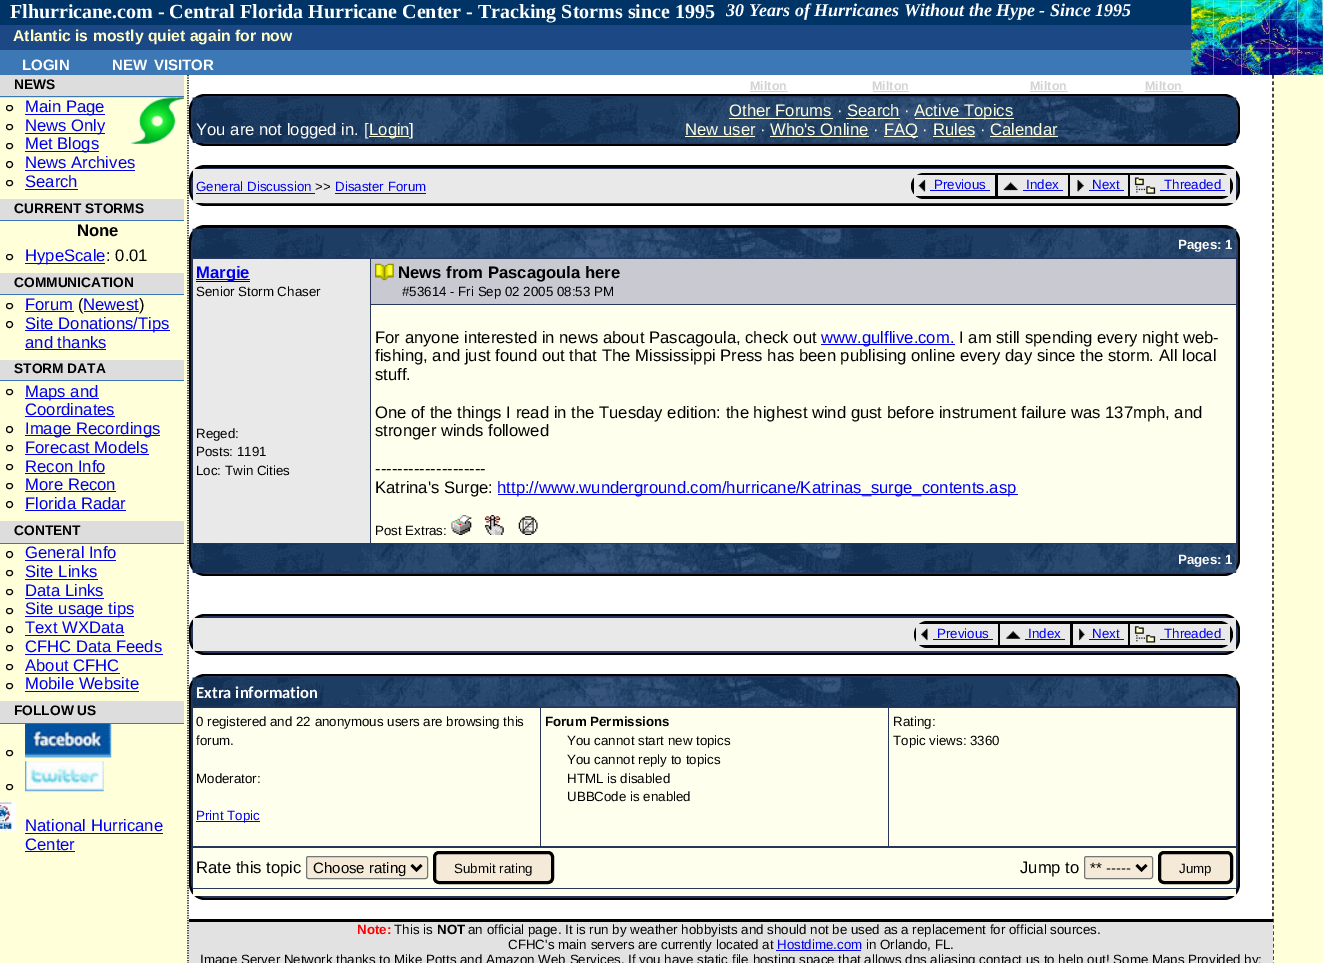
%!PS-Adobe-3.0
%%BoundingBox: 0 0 1323 963
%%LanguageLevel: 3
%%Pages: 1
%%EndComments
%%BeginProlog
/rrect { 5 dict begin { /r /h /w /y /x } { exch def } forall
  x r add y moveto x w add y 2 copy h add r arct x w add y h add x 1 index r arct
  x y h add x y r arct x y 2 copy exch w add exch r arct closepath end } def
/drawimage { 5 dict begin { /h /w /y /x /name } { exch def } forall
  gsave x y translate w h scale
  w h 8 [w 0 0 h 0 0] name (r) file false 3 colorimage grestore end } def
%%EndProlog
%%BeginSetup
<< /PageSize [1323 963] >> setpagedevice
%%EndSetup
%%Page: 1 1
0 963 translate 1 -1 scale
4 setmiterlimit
1 1 0.855 setrgbcolor
0 0 1323 963 rectfill
0 0.2 0.4 setrgbcolor
0 0 1192 25 rectfill
0.11 0.282 0.522 setrgbcolor
0 25 1323 25 rectfill
0.235 0.471 0.71 setrgbcolor
0 50 1323 25 rectfill
(images/1.raw) 1191 0 132 75 drawimage
1 setgray
188 75 1086 888 rectfill
0.827 setgray
750 91 38 1 rectfill
873 91 36 1 rectfill
1030 91 38 1 rectfill
1145 91 38 1 rectfill
0.867 setgray
0 75 184 23 rectfill
0.235 0.471 0.71 setrgbcolor
0 96 184 1 rectfill
(images/2.raw) 130 97 54 47 drawimage
0 setgray
6.5 105.5 6 5 2.5 rrect stroke
0 0 0.933 setrgbcolor
25 114 80 1 rectfill
0 setgray
6.5 124.5 6 5 2.5 rrect stroke
0 0 0.933 setrgbcolor
25 133 80 1 rectfill
0 setgray
6.5 143.5 6 5 2.5 rrect stroke
0 0 0.933 setrgbcolor
25 151 74 1 rectfill
0 setgray
newpath 9.5 164.5 3 0 360 arc closepath stroke
0 0 0.933 setrgbcolor
25 170 110 1 rectfill
0 setgray
6.5 180.5 6 5 2.5 rrect stroke
0 0 0.933 setrgbcolor
25 189 53 1 rectfill
0.867 setgray
0 199 184 21 rectfill
0.235 0.471 0.71 setrgbcolor
0 220 184 1 rectfill
0 setgray
6.5 254.5 6 5 2.5 rrect stroke
0 0 0.933 setrgbcolor
25 263 80 1 rectfill
0.867 setgray
0 273 184 21 rectfill
0.235 0.471 0.71 setrgbcolor
0 294 184 1 rectfill
0 setgray
6.5 303.5 6 5 2.5 rrect stroke
0 0 0.933 setrgbcolor
25 311 49 1 rectfill
84 311 55 1 rectfill
0 setgray
newpath 9.5 324.5 3 0 360 arc closepath stroke
0 0 0.933 setrgbcolor
25 330 145 1 rectfill
25 349 81 1 rectfill
0.867 setgray
0 360 184 20 rectfill
0.235 0.471 0.71 setrgbcolor
0 380 184 1 rectfill
0 setgray
6.5 389.5 6 5 2.5 rrect stroke
0 0 0.933 setrgbcolor
25 398 74 1 rectfill
25 416 90 1 rectfill
0 setgray
newpath 9.5 429.5 3 0 360 arc closepath stroke
0 0 0.933 setrgbcolor
25 435 135 1 rectfill
0 setgray
6.5 445.5 6 5 2.5 rrect stroke
0 0 0.933 setrgbcolor
25 454 124 1 rectfill
0 setgray
6.5 464.5 6 5 2.5 rrect stroke
0 0 0.933 setrgbcolor
25 473 80 1 rectfill
0 setgray
6.5 483.5 6 5 2.5 rrect stroke
0 0 0.933 setrgbcolor
25 491 91 1 rectfill
0 setgray
newpath 9.5 504.5 3 0 360 arc closepath stroke
0 0 0.933 setrgbcolor
25 510 101 1 rectfill
0.867 setgray
0 521 184 22 rectfill
0.235 0.471 0.71 setrgbcolor
0 543 184 1 rectfill
0 setgray
newpath 9.5 554.5 3 0 360 arc closepath stroke
0 0 0.933 setrgbcolor
25 560 91 1 rectfill
0 setgray
6.5 570.5 6 5 2.5 rrect stroke
0 0 0.933 setrgbcolor
25 579 73 1 rectfill
0 setgray
6.5 589.5 6 5 2.5 rrect stroke
0 0 0.933 setrgbcolor
25 598 79 1 rectfill
0 setgray
6.5 608.5 6 5 2.5 rrect stroke
0 0 0.933 setrgbcolor
25 616 109 1 rectfill
0 setgray
newpath 9.5 629.5 3 0 360 arc closepath stroke
0 0 0.933 setrgbcolor
25 635 99 1 rectfill
0 setgray
6.5 645.5 6 5 2.5 rrect stroke
0 0 0.933 setrgbcolor
25 654 138 1 rectfill
0 setgray
6.5 664.5 6 5 2.5 rrect stroke
0 0 0.933 setrgbcolor
25 673 95 1 rectfill
0 setgray
6.5 683.5 6 5 2.5 rrect stroke
0 0 0.933 setrgbcolor
25 691 114 1 rectfill
0.867 setgray
0 701 184 22 rectfill
0.235 0.471 0.71 setrgbcolor
0 723 184 1 rectfill
0 setgray
6.5 750.5 6 5 2.5 rrect stroke
(images/3.raw) 25 723 87 35 drawimage
6.5 784.5 6 5 2.5 rrect stroke
(images/4.raw) 25 761 79 31 drawimage
(images/5.raw) 0 801 17 31 drawimage
0 0 0.933 setrgbcolor
25 833 138 1 rectfill
25 851 50 1 rectfill
0 setgray
1.2 setlinewidth
[3.75 2.5] 0 setdash
newpath 1273 75 moveto 1273 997.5 lineto stroke
[1.25 1.25] 0 setdash
newpath 188 75 moveto 188 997.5 lineto stroke
189 94 1051 52 16 rrect fill
0.149 0.216 0.357 setrgbcolor
191 96 1047 48 16 rrect fill
193 142 9 1 rectfill
(images/6.raw) 192 97 313 46 drawimage
0.996 1 0.875 setrgbcolor
369 136 40 1 rectfill
0.149 0.216 0.357 setrgbcolor
1227 98 9 45 rectfill
(images/7.raw) 506 97 731 46 drawimage
0.996 1 0.875 setrgbcolor
729 118 104 1 rectfill
846 118 54 1 rectfill
915 118 99 1 rectfill
685 136 70 1 rectfill
770 136 99 1 rectfill
884 136 34 1 rectfill
933 136 42 1 rectfill
990 136 68 1 rectfill
0 setgray
189 165 1051 41 16 rrect fill
0.149 0.216 0.357 setrgbcolor
191 168 1047 36 16 rrect fill
0.914 setgray
193 169 1043 34 rectfill
0 0 0.933 setrgbcolor
196 193 119 1 rectfill
335 193 91 1 rectfill
0 setgray
911 173 322 26 13 rrect fill
0.914 setgray
914 175 81 21 rectfill
(images/8.raw) 918 179 8 13 drawimage
0 0 0.933 setrgbcolor
930 190 60 1 rectfill
0.914 setgray
998 175 70 21 rectfill
(images/9.raw) 1003 182 15 9 drawimage
0 0 0.933 setrgbcolor
1023 190 40 1 rectfill
0.914 setgray
1070 175 58 21 rectfill
(images/10.raw) 1077 179 7 13 drawimage
0 0 0.933 setrgbcolor
1089 190 35 1 rectfill
0.914 setgray
1130 175 100 21 rectfill
(images/11.raw) 1134 177 22 17 drawimage
0 0 0.933 setrgbcolor
1160 190 65 1 rectfill
0 setgray
189 225 1051 351 16 rrect fill
0.149 0.216 0.357 setrgbcolor
191 228 1047 346 16 rrect fill
(images/12.raw) 192 228 1045 30 drawimage
0.914 setgray
193 259 177 284 rectfill
0 setgray
196 281 54 1 rectfill
0 0 0.933 setrgbcolor
196 279 54 1 rectfill
0.788 0.788 0.824 setrgbcolor
371 259 865 45 rectfill
(images/13.raw) 375 263 19 18 drawimage
1 1 0.933 setrgbcolor
371 305 865 238 rectfill
0 0 0.933 setrgbcolor
821 344 134 1 rectfill
498 494 520 1 rectfill
(images/14.raw) 451 515 21 20 drawimage
(images/15.raw) 484 515 20 20 drawimage
(images/16.raw) 518 516 20 19 drawimage
0.149 0.216 0.357 setrgbcolor
193 572 1043 1 rectfill
(images/17.raw) 192 543 1045 30 drawimage
0 setgray
189 614 1051 41 16 rrect fill
0.149 0.216 0.357 setrgbcolor
191 616 1047 37 16 rrect fill
0.914 setgray
193 618 1043 33 rectfill
0 setgray
914 621 319 27 13.5 rrect fill
0.914 setgray
916 624 82 21 rectfill
(images/18.raw) 921 628 7 13 drawimage
0 0 0.933 setrgbcolor
933 639 60 1 rectfill
0.914 setgray
1000 624 70 21 rectfill
(images/19.raw) 1006 631 15 8 drawimage
0 0 0.933 setrgbcolor
1025 639 40 1 rectfill
0.914 setgray
1073 624 55 21 rectfill
(images/20.raw) 1079 628 6 13 drawimage
0 0 0.933 setrgbcolor
1089 639 35 1 rectfill
0.914 setgray
1130 624 100 21 rectfill
(images/21.raw) 1134 626 22 17 drawimage
0 0 0.933 setrgbcolor
1160 639 65 1 rectfill
0 setgray
189 674 1051 226 16 rrect fill
0.149 0.216 0.357 setrgbcolor
191 676 1047 222 16 rrect fill
(images/22.raw) 192 677 1045 30 drawimage
1 1 0.933 setrgbcolor
193 708 347 138 rectfill
0 0 0.933 setrgbcolor
196 821 64 1 rectfill
1 1 0.933 setrgbcolor
541 708 347 138 rectfill
889 708 347 138 rectfill
193 848 1043 40 rectfill
0.957 0.918 0.843 setrgbcolor
306.5 856.5 121 22 2 rrect gsave fill grestore
0.463 setgray
1 setlinewidth
[] 0 setdash
stroke
0 setgray
2.5 setlinewidth
newpath 411.5 865 moveto 416.5 870 lineto 421.5 865 lineto stroke
0.957 0.918 0.843 setrgbcolor
434.5 852.5 118 30 4.5 rrect gsave fill grestore
0 setgray
3 setlinewidth
stroke
0.957 0.918 0.843 setrgbcolor
1084.5 856.5 68 22 2 rrect gsave fill grestore
0.463 setgray
1 setlinewidth
stroke
0 setgray
2.5 setlinewidth
newpath 1136.5 865 moveto 1141.5 870 lineto 1146.5 865 lineto stroke
0.957 0.918 0.843 setrgbcolor
1159.5 852.5 72 30 4.5 rrect gsave fill grestore
0 setgray
3 setlinewidth
stroke
1 1 0.933 setrgbcolor
193 889 1043 7 rectfill
0.886 setgray
189 922 1084 41 rectfill
0 setgray
189 919 1084 3 rectfill
0 0 0.933 setrgbcolor
776 950 85 1 rectfill
/LiberationSerif-Bold [20 0 0 -20 0 0] selectfont
1 setgray
10 18 moveto (Flhurricane.com - Central Florida Hurricane Center - Tracking Storms since 1995) show
/LiberationSerif-BoldItalic [18 0 0 -18 0 0] selectfont
726 16 moveto (30 Years of Hurricanes Without the Hype - Since 1995) show
/LiberationSans-Bold [15.75 0 0 -15.75 0 0] selectfont
1 1 0.8 setrgbcolor
13 41 moveto (Atlantic is mostly quiet again for now) show
/LiberationSans-Bold [12.5 0 0 -12.5 0 0] selectfont
0.827 setgray
750 90 moveto (Milton) show
872 90 moveto (Milton) show
1030 90 moveto (Milton) show
1145 90 moveto (Milton) show
/LiberationSans-Bold [15 0 0 -15 0 0] selectfont
1 setgray
22 70 moveto (LOGIN) show
112 70 moveto (NEW) show
154 70 moveto (VISITOR) show
/LiberationSans-Bold [13.75 0 0 -13.75 0 0] selectfont
0 setgray
14 89 moveto (NEWS) show
/LiberationSans-Regular [16.65 0 0 -16.65 0 0] selectfont
0 0 0.933 setrgbcolor
25 112 moveto (Main Page) show
25 131 moveto (News Only) show
25 149 moveto (Met Blogs) show
25 168 moveto (News Archives) show
25 187 moveto (Search) show
/LiberationSans-Bold [13.75 0 0 -13.75 0 0] selectfont
0 setgray
14 213 moveto (CURRENT STORMS) show
/LiberationSans-Bold [16.65 0 0 -16.65 0 0] selectfont
77 236 moveto (None) show
/LiberationSans-Regular [16.65 0 0 -16.65 0 0] selectfont
0 0 0.933 setrgbcolor
25 261 moveto (HypeScale) show
0 setgray
106 261 moveto (: 0.01) show
/LiberationSans-Bold [13.75 0 0 -13.75 0 0] selectfont
14 287 moveto (COMMUNICATION) show
/LiberationSans-Regular [16.65 0 0 -16.65 0 0] selectfont
0 0 0.933 setrgbcolor
25 310 moveto (Forum) show
0 setgray
78 310 moveto (\() show
0 0 0.933 setrgbcolor
83 310 moveto (Newest) show
0 setgray
139 310 moveto (\)) show
0 0 0.933 setrgbcolor
25 329 moveto (Site Donations/Tips) show
25 348 moveto (and thanks) show
/LiberationSans-Bold [13.75 0 0 -13.75 0 0] selectfont
0 setgray
14 373 moveto (STORM DATA) show
/LiberationSans-Regular [16.65 0 0 -16.65 0 0] selectfont
0 0 0.933 setrgbcolor
25 397 moveto (Maps and) show
25 415 moveto (Coordinates) show
25 434 moveto (Image Recordings) show
25 453 moveto (Forecast Models) show
25 472 moveto (Recon Info) show
25 490 moveto (More Recon) show
25 509 moveto (Florida Radar) show
/LiberationSans-Bold [13.75 0 0 -13.75 0 0] selectfont
0 setgray
14 535 moveto (CONTENT) show
/LiberationSans-Regular [16.65 0 0 -16.65 0 0] selectfont
0 0 0.933 setrgbcolor
25 558 moveto (General Info) show
25 577 moveto (Site Links) show
25 596 moveto (Data Links) show
25 614 moveto (Site usage tips) show
25 633 moveto (Text WXData) show
25 652 moveto (CFHC Data Feeds) show
25 671 moveto (About CFHC) show
25 689 moveto (Mobile Website) show
/LiberationSans-Bold [13.75 0 0 -13.75 0 0] selectfont
0 setgray
14 715 moveto (FOLLOW US) show
/LiberationSans-Regular [16.65 0 0 -16.65 0 0] selectfont
0 0 0.933 setrgbcolor
25 831 moveto (National Hurricane) show
25 850 moveto (Center) show
1 setgray
196 135 moveto (You are not logged in. [) show
0.996 1 0.875 setrgbcolor
369 135 moveto (Login) show
1 setgray
409 135 moveto (]) show
0.996 1 0.875 setrgbcolor
729 116 moveto (Other Forums) show
1 setgray
837 116 moveto (·) show
0.996 1 0.875 setrgbcolor
847 116 moveto (Search) show
1 setgray
904 116 moveto (·) show
0.996 1 0.875 setrgbcolor
914 116 moveto (Active Topics) show
685 135 moveto (New user) show
1 setgray
760 135 moveto (·) show
0.996 1 0.875 setrgbcolor
770 135 moveto (Who's Online) show
1 setgray
873 135 moveto (·) show
0.996 1 0.875 setrgbcolor
884 135 moveto (FAQ) show
1 setgray
922 135 moveto (·) show
0.996 1 0.875 setrgbcolor
933 135 moveto (Rules) show
1 setgray
980 135 moveto (·) show
0.996 1 0.875 setrgbcolor
990 135 moveto (Calendar) show
/LiberationSans-Regular [13.33 0 0 -13.33 0 0] selectfont
0 0 0.933 setrgbcolor
196 191 moveto (General Discussion) show
0 setgray
315 191 moveto (>>) show
0 0 0.933 setrgbcolor
335 191 moveto (Disaster Forum) show
934 189 moveto (Previous) show
1026 189 moveto (Index) show
1092 189 moveto (Next) show
1164 189 moveto (Threaded) show
/LiberationSans-Bold [13.33 0 0 -13.33 0 0] selectfont
1 setgray
1178 249 moveto (Pages: 1) show
/LiberationSans-Bold [16.65 0 0 -16.65 0 0] selectfont
0 0 0.933 setrgbcolor
196 278 moveto (Margie) show
/LiberationSans-Regular [13.33 0 0 -13.33 0 0] selectfont
0 setgray
196 296 moveto (Senior Storm Chaser) show
196 438 moveto (Reged:) show
196 456 moveto (Posts: 1191) show
196 475 moveto (Loc: Twin Cities) show
/LiberationSans-Bold [16.65 0 0 -16.65 0 0] selectfont
398 278 moveto (News from Pascagoula here) show
/LiberationSans-Regular [13.33 0 0 -13.33 0 0] selectfont
402 296 moveto (#53614 - Fri Sep 02 2005 08:53 PM) show
/LiberationSans-Regular [16.65 0 0 -16.65 0 0] selectfont
375 343 moveto (For anyone interested in news about Pascagoula, check out) show
0 0 0.933 setrgbcolor
821 343 moveto (www.gulflive.com.) show
0 setgray
959 343 moveto (I am still spending every night web-) show
375 361 moveto (fishing, and just found out that The Mississippi Press has been publising online every day since the storm.) show
1159 361 moveto (All local) show
375 380 moveto (stuff.) show
375 418 moveto (One of the things I read in the Tuesday edition: the highest wind gust before instrument failure was 137mph, and) show
375 436 moveto (stronger winds followed) show
375 474 moveto (--------------------) show
375 493 moveto (Katrina's Surge:) show
0 0 0.933 setrgbcolor
497 493 moveto (http://www.wunderground.com/hurricane/Katrinas_surge_contents.asp) show
/LiberationSans-Regular [13.33 0 0 -13.33 0 0] selectfont
0 setgray
375 535 moveto (Post Extras:) show
/LiberationSans-Bold [13.33 0 0 -13.33 0 0] selectfont
1 setgray
1178 564 moveto (Pages: 1) show
/LiberationSans-Regular [13.33 0 0 -13.33 0 0] selectfont
0 0 0.933 setrgbcolor
937 638 moveto (Previous) show
1028 638 moveto (Index) show
1092 638 moveto (Next) show
1164 638 moveto (Threaded) show
/Carlito-Bold [16.65 0 0 -16.65 0 0] selectfont
1 setgray
196 698 moveto (Extra information) show
/LiberationSans-Regular [13.33 0 0 -13.33 0 0] selectfont
0 setgray
196 726 moveto (0 registered and 22 anonymous users are browsing this) show
196 745 moveto (forum.) show
196 783 moveto (Moderator:) show
0 0 0.933 setrgbcolor
196 820 moveto (Print Topic) show
/LiberationSans-Bold [13.33 0 0 -13.33 0 0] selectfont
0 setgray
545 726 moveto (Forum Permissions) show
/LiberationSans-Regular [13.33 0 0 -13.33 0 0] selectfont
567 745 moveto (You cannot start new topics) show
567 764 moveto (You cannot reply to topics) show
567 783 moveto (HTML is disabled) show
567 801 moveto (UBBCode is enabled) show
893 726 moveto (Rating:) show
893 745 moveto (Topic views: 3360) show
/LiberationSans-Regular [16.65 0 0 -16.65 0 0] selectfont
196 873 moveto (Rate this topic) show
/LiberationSans-Regular [15 0 0 -15 0 0] selectfont
313 873 moveto (Choose rating) show
/LiberationSans-Regular [13.33 0 0 -13.33 0 0] selectfont
454 873 moveto (Submit rating) show
/LiberationSans-Regular [16.65 0 0 -16.65 0 0] selectfont
1020 873 moveto (Jump to) show
/LiberationSans-Regular [15 0 0 -15 0 0] selectfont
1090 873 moveto (** -----) show
/LiberationSans-Regular [13.33 0 0 -13.33 0 0] selectfont
1179 873 moveto (Jump) show
/LiberationSans-Bold [13.33 0 0 -13.33 0 0] selectfont
1 0 0 setrgbcolor
357 934 moveto (Note:) show
/LiberationSans-Regular [13.33 0 0 -13.33 0 0] selectfont
0 setgray
394 934 moveto (This is) show
/LiberationSans-Bold [13.33 0 0 -13.33 0 0] selectfont
437 934 moveto (NOT) show
/LiberationSans-Regular [13.33 0 0 -13.33 0 0] selectfont
468 934 moveto (an official page. It is run by weather hobbyists and should not be used as a replacement for official sources.) show
508 949 moveto (CFHC's main servers are currently located at) show
0 0 0.933 setrgbcolor
777 949 moveto (Hostdime.com) show
0 setgray
866 949 moveto (in Orlando, FL.) show
200 964 moveto (Image Server Network thanks to Mike Potts and Amazon Web Services. If you have static file hosting space that allows dns aliasing contact us to help out! Some Maps Provided by:) show
showpage
%%EOF
